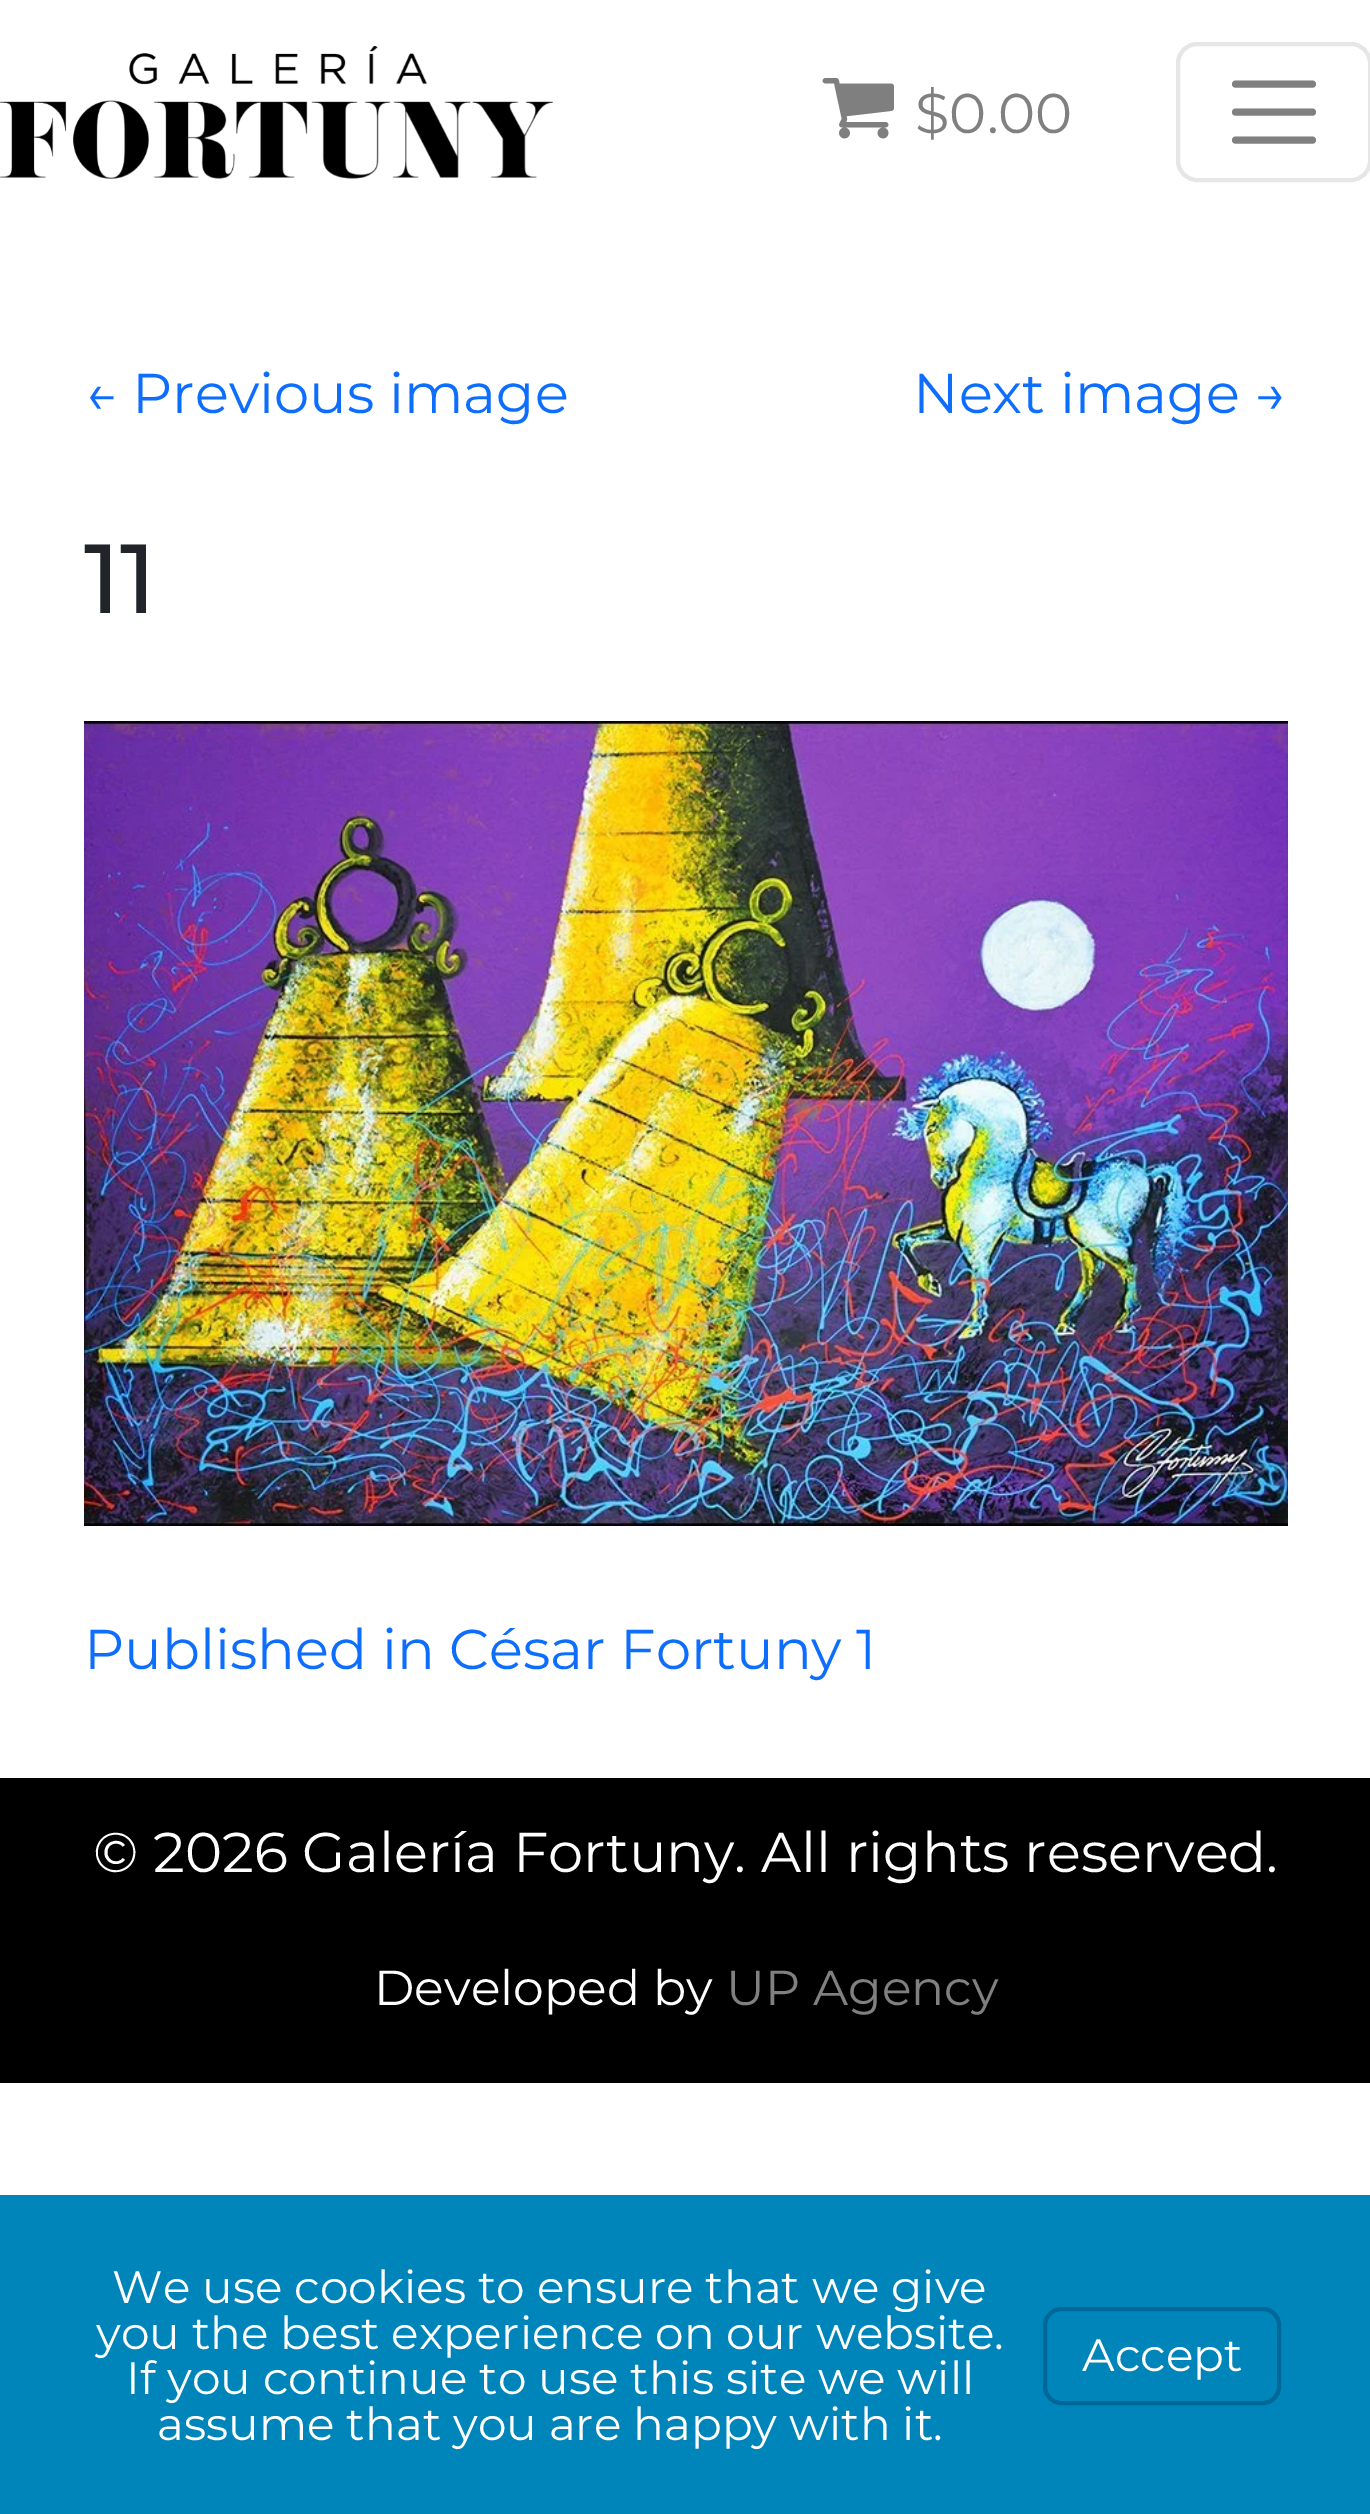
%!PS-Adobe-3.0
%%BoundingBox: 0 0 1370 2514
%%LanguageLevel: 3
%%Pages: 1
%%EndComments
%%BeginProlog
/rrect { 5 dict begin { /r /h /w /y /x } { exch def } forall
  x r add y moveto x w add y 2 copy h add r arct x w add y h add x 1 index r arct
  x y h add x y r arct x y 2 copy exch w add exch r arct closepath end } def
/drawimage { 5 dict begin { /h /w /y /x /name } { exch def } forall
  gsave x y translate w h scale
  w h 8 [w 0 0 h 0 0] name (r) file false 3 colorimage grestore end } def
%%EndProlog
%%BeginSetup
<< /PageSize [1370 2514] >> setpagedevice
%%EndSetup
%%Page: 1 1
0 2514 translate 1 -1 scale
4 setmiterlimit
1 setgray
0 0 1370 2514 rectfill
(images/1.raw) 0 46 553 133 drawimage
(images/2.raw) 822 78 72 61 drawimage
0.902 setgray
4 setlinewidth
1178 44 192 136 19 rrect stroke
0.502 setgray
7 setlinewidth
1 setlinecap
newpath 1235.5 84 moveto 1312.5 84 lineto 1235.5 112 moveto 1312.5 112 lineto 1235.5 140 moveto 1312.5 140 lineto stroke
(images/3.raw) 84 721 1204 805 drawimage
0 setgray
0 1778 1370 305 rectfill
0 0.522 0.729 setrgbcolor
0 2195 1370 319 rectfill
0 0.404 0.6 setrgbcolor
4 setlinewidth
0 setlinecap
1045 2309 234 94 16 rrect stroke
/Montserrat-Regular [56 0 0 -56 0 0] selectfont
0.502 setgray
915 133 moveto ($0.00) show
0.051 0.431 0.992 setrgbcolor
84 413 moveto (← Previous image) show
913 413 moveto (Next image →) show
/Montserrat-Medium [98 0 0 -98 0 0] selectfont
0.129 0.145 0.161 setrgbcolor
84 613 moveto (11) show
/Montserrat-Regular [56 0 0 -56 0 0] selectfont
0.051 0.431 0.992 setrgbcolor
84 1669 moveto (Published in César Fortuny 1) show
1 setgray
93 1872 moveto (© 2026 Galería Fortuny. All rights reserved.) show
/Montserrat-Regular [49 0 0 -49 0 0] selectfont
374 2005 moveto (Developed by) show
0.502 setgray
726 2005 moveto (UP Agency) show
/Montserrat-Regular [45.5 0 0 -45.5 0 0] selectfont
1 setgray
112 2303 moveto (We use cookies to ensure that we give) show
96 2349 moveto (you the best experience on our website.) show
126 2394 moveto (If you continue to use this site we will) show
157 2440 moveto (assume that you are happy with it.) show
1082 2371 moveto (Accept) show
showpage
%%EOF
